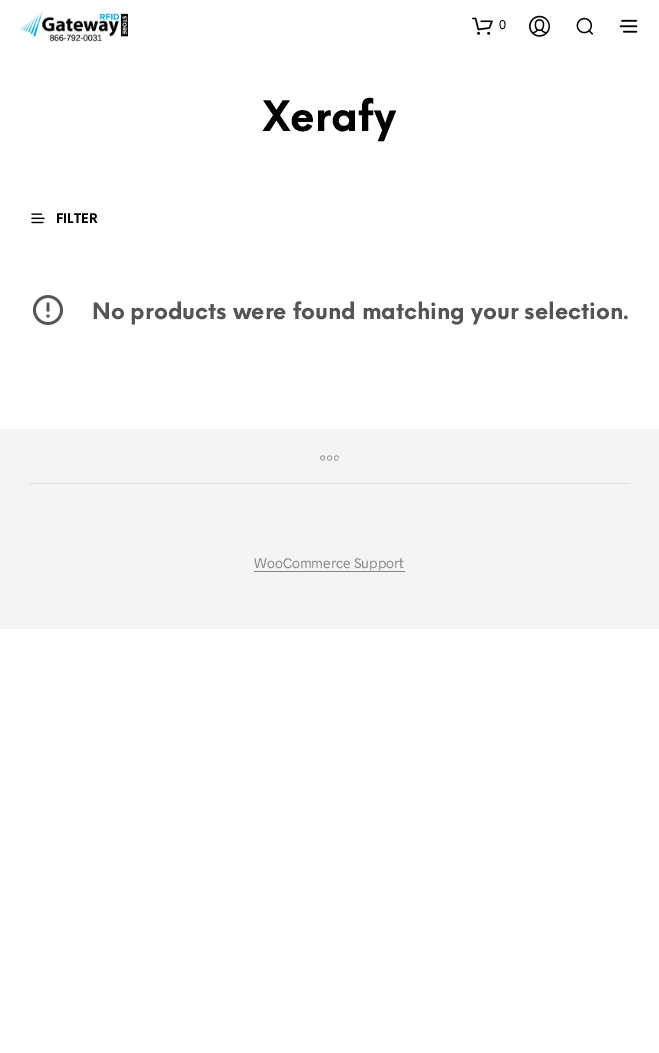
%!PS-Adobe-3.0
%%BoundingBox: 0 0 659 1053
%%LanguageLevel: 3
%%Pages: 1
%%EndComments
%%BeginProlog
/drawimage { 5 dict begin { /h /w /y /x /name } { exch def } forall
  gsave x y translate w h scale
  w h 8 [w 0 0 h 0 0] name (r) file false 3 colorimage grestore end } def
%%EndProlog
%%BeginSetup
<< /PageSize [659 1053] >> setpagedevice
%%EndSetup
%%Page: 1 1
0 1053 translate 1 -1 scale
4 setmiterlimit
1 setgray
0 0 659 1053 rectfill
(images/1.raw) 20 10 108 32 drawimage
(images/2.raw) 472 17 21 18 drawimage
(images/3.raw) 529 15 21 22 drawimage
(images/4.raw) 576 17 17 18 drawimage
(images/5.raw) 619 19 19 14 drawimage
(images/6.raw) 31 213 14 11 drawimage
(images/7.raw) 33 295 30 30 drawimage
0.957 setgray
0 429 659 200 rectfill
0.867 setgray
30 483 599 1 rectfill
(images/8.raw) 320 455 20 6 drawimage
0.525 setgray
254 571 151 1 rectfill
/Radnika-Regular [13 0 0 -13 0 0] selectfont
0 setgray
499 29 moveto (0) show
/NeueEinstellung-Bold [41 0 0 -41 0 0] selectfont
263 131 moveto (Xerafy) show
/NeueEinstellung-Bold [13 0 0 -13 0 0] selectfont
56 223 moveto (FILTER) show
/NeueEinstellung-Bold [22 0 0 -22 0 0] selectfont
0.329 setgray
92 319 moveto (No products were found matching your selection.) show
/Radnika-Regular [14 0 0 -14 0 0] selectfont
0.525 setgray
254 568 moveto (WooCommerce Support) show
showpage
%%EOF
